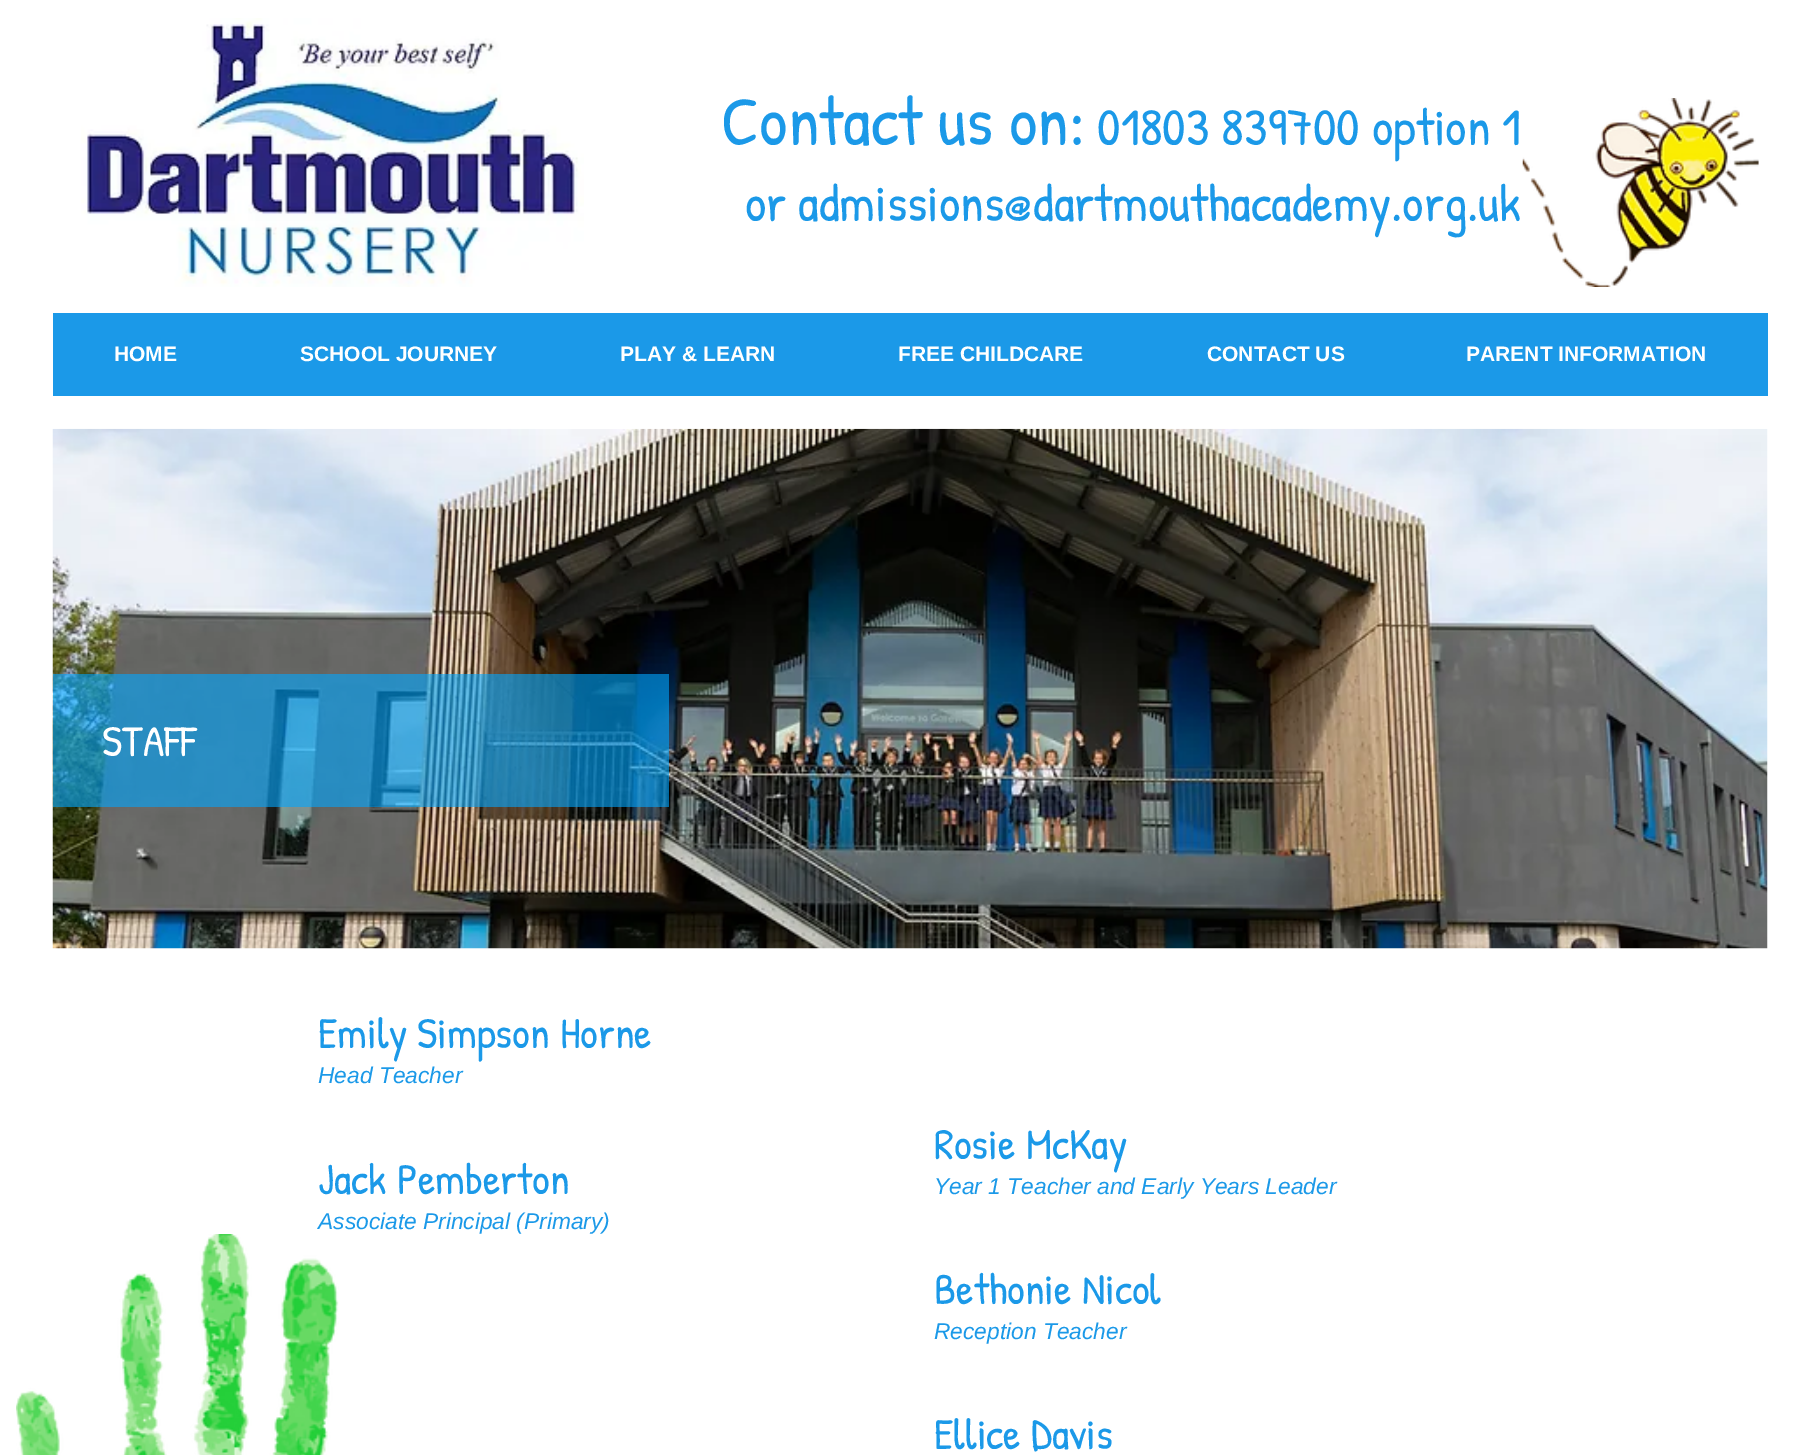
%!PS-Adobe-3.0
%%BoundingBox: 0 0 1817 1455
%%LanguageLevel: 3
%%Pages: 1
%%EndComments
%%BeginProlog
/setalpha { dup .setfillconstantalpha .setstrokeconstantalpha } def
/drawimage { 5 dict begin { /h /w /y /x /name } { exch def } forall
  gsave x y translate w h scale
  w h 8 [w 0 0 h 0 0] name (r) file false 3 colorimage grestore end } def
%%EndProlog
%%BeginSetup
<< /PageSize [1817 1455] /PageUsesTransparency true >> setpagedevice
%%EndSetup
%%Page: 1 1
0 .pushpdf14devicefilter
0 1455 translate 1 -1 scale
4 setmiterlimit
1 setgray
0 0 1817 1455 rectfill
(images/1.raw) 81 18 503 269 drawimage
(images/2.raw) 1522 98 237 189 drawimage
0.106 0.6 0.91 setrgbcolor
53 313 1715 83 rectfill
(images/3.raw) 52 428 1716 521 drawimage
0.6 setalpha
0 0.651 1 setrgbcolor
53 674 616 133 rectfill
1 setalpha
(images/4.raw) 16 1234 323 221 drawimage
/PatrickHand-Regular [70 0 0 -70 0 0] selectfont
0.106 0.6 0.91 setrgbcolor
721 145 moveto (Contact us on:) show
/PatrickHand-Regular [52.5 0 0 -52.5 0 0] selectfont
1097 145 moveto (01803 839700 option 1) show
745 221 moveto (or admissions@dartmouthacademy.org.uk) show
/LiberationSans-Bold [21 0 0 -21 0 0] selectfont
1 setgray
114 361 moveto (HOME) show
300 361 moveto (SCHOOL JOURNEY) show
620 361 moveto (PLAY & LEARN) show
898 361 moveto (FREE CHILDCARE) show
1207 361 moveto (CONTACT US) show
1466 361 moveto (PARENT INFORMATION) show
/PatrickHand-Regular [43.75 0 0 -43.75 0 0] selectfont
102 756 moveto (STAFF) show
0.106 0.6 0.91 setrgbcolor
318 1048 moveto (Emily Simpson Horne) show
/LiberationSans-Italic [22.75 0 0 -22.75 0 0] selectfont
318 1083 moveto (Head Teacher) show
/PatrickHand-Regular [43.75 0 0 -43.75 0 0] selectfont
318 1194 moveto (Jack Pemberton) show
/LiberationSans-Italic [22.75 0 0 -22.75 0 0] selectfont
318 1229 moveto (Associate Principal \(Primary\)) show
/PatrickHand-Regular [43.75 0 0 -43.75 0 0] selectfont
934 1159 moveto (Rosie McKay) show
/LiberationSans-Italic [22.75 0 0 -22.75 0 0] selectfont
934 1194 moveto (Year 1 Teacher and Early Years Leader) show
/PatrickHand-Regular [43.75 0 0 -43.75 0 0] selectfont
934 1304 moveto (Bethonie Nicol) show
/LiberationSans-Italic [22.75 0 0 -22.75 0 0] selectfont
934 1339 moveto (Reception Teacher) show
/PatrickHand-Regular [43.75 0 0 -43.75 0 0] selectfont
934 1449 moveto (Ellice Davis) show
.poppdf14devicefilter showpage
%%EOF
